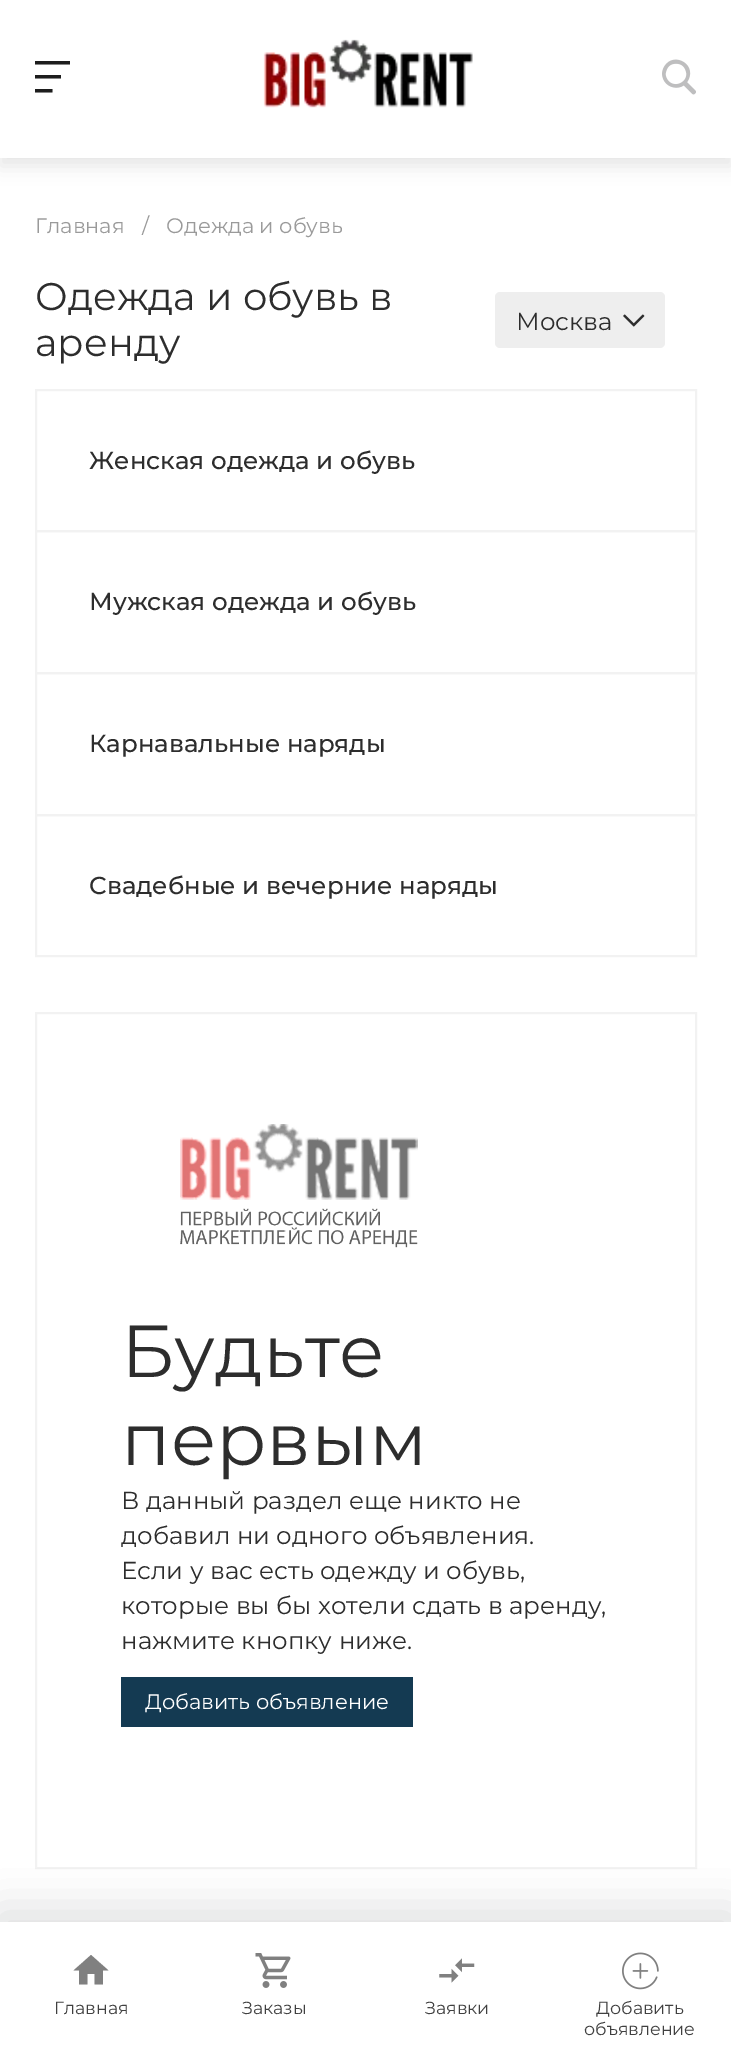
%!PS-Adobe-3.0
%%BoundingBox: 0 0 731 2072
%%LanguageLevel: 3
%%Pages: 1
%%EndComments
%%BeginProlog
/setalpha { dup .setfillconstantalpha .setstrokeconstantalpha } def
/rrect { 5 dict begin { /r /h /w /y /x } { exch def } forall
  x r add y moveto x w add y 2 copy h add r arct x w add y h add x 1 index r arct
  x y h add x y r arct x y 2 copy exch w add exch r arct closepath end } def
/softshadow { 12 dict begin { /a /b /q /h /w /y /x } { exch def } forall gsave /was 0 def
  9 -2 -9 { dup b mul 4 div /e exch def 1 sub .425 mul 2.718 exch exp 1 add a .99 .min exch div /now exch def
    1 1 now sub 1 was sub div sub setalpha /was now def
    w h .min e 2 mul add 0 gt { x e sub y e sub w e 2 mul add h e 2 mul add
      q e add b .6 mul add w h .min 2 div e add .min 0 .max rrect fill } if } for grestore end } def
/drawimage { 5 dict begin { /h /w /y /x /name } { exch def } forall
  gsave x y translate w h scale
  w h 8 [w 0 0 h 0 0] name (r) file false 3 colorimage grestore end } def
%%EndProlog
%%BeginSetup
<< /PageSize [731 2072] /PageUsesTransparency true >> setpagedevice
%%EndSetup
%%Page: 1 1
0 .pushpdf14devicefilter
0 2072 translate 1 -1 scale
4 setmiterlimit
1 setgray
0 0 731 2072 rectfill
0 setgray
0 9 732 157 0 9 0.1 softshadow
1 setgray
0 0 731 158 rectfill
0.114 setgray
newpath 35 61 moveto 35 64.5 lineto 70 64.5 lineto 70 61 lineto closepath 35 75 moveto 35 78.5 lineto 61 78.5 lineto 61 75 lineto closepath 35 89 moveto 35 92.5 lineto 52.5 92.5 lineto 52.5 89 lineto closepath fill
(images/1.raw) 263 39 210 69 drawimage
(images/2.raw) 662 59 34 36 drawimage
0.933 setgray
495 292 170 56 5 rrect fill
(images/3.raw) 623 314 22 13 drawimage
0.949 setgray
2 setlinewidth
36 1013 660 855 rectstroke
0.106 0.118 0.145 setrgbcolor
0 1915 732 150 0 21 0.08 softshadow
0 1915 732 150 0 21 0.08 softshadow
1 setgray
0 1922 731 150 rectfill
0.502 setgray
newpath 87.5 1984.5 moveto 87.5 1974 lineto 94.5 1974 lineto 94.5 1984.5 lineto 103 1984.5 lineto 103 1970.5 lineto 108.5 1970.5 lineto 91 1955 lineto 73.5 1970.5 lineto 79 1970.5 lineto 79 1984.5 lineto closepath fill
(images/4.raw) 255 1953 36 35 drawimage
(images/5.raw) 439 1958 36 25 drawimage
(images/6.raw) 622 1952 37 38 drawimage
0.949 setgray
36 390 660 141 rectstroke
36 531 660 142 rectstroke
36 673 660 142 rectstroke
36 815 660 141 rectstroke
(images/7.raw) 180 1124 238 124 drawimage
0.078 0.227 0.322 setrgbcolor
121 1677 292 50 rectfill
/Montserrat-Regular [21 0 0 -21 0 0] selectfont
0.604 setgray
35 233 moveto (Главная) show
142 233 moveto (/) show
166 233 moveto (Одежда и обувь) show
/Montserrat-Regular [38.5 0 0 -38.5 0 0] selectfont
0.176 setgray
35 310 moveto (Одежда и обувь в) show
35 356 moveto (аренду) show
/Montserrat-Regular [24.5 0 0 -24.5 0 0] selectfont
516 330 moveto (Москва) show
/Montserrat-Regular [17.5 0 0 -17.5 0 0] selectfont
0.251 setgray
54 2014 moveto (Главная) show
242 2014 moveto (Заказы) show
425 2014 moveto (Заявки) show
596 2014 moveto (Добавить) show
584 2035 moveto (объявление) show
/Montserrat-Medium [24.5 0 0 -24.5 0 0] selectfont
0.176 setgray
89 469 moveto (Женская одежда и обувь) show
89 610 moveto (Мужская одежда и обувь) show
89 752 moveto (Карнавальные наряды) show
89 894 moveto (Свадебные и вечерние наряды) show
/Montserrat-Regular [73.5 0 0 -73.5 0 0] selectfont
121 1377 moveto (Будьте) show
121 1465 moveto (первым) show
/Montserrat-Regular [24.5 0 0 -24.5 0 0] selectfont
121 1509 moveto (В данный раздел еще никто не) show
121 1544 moveto (добавил ни одного объявления.) show
121 1579 moveto (Если у вас есть одежду и обувь,) show
121 1614 moveto (которые вы бы хотели сдать в аренду,) show
121 1649 moveto (нажмите кнопку ниже.) show
/Montserrat-Regular [21 0 0 -21 0 0] selectfont
1 setgray
145 1709 moveto (Добавить объявлениe) show
.poppdf14devicefilter showpage
%%EOF
